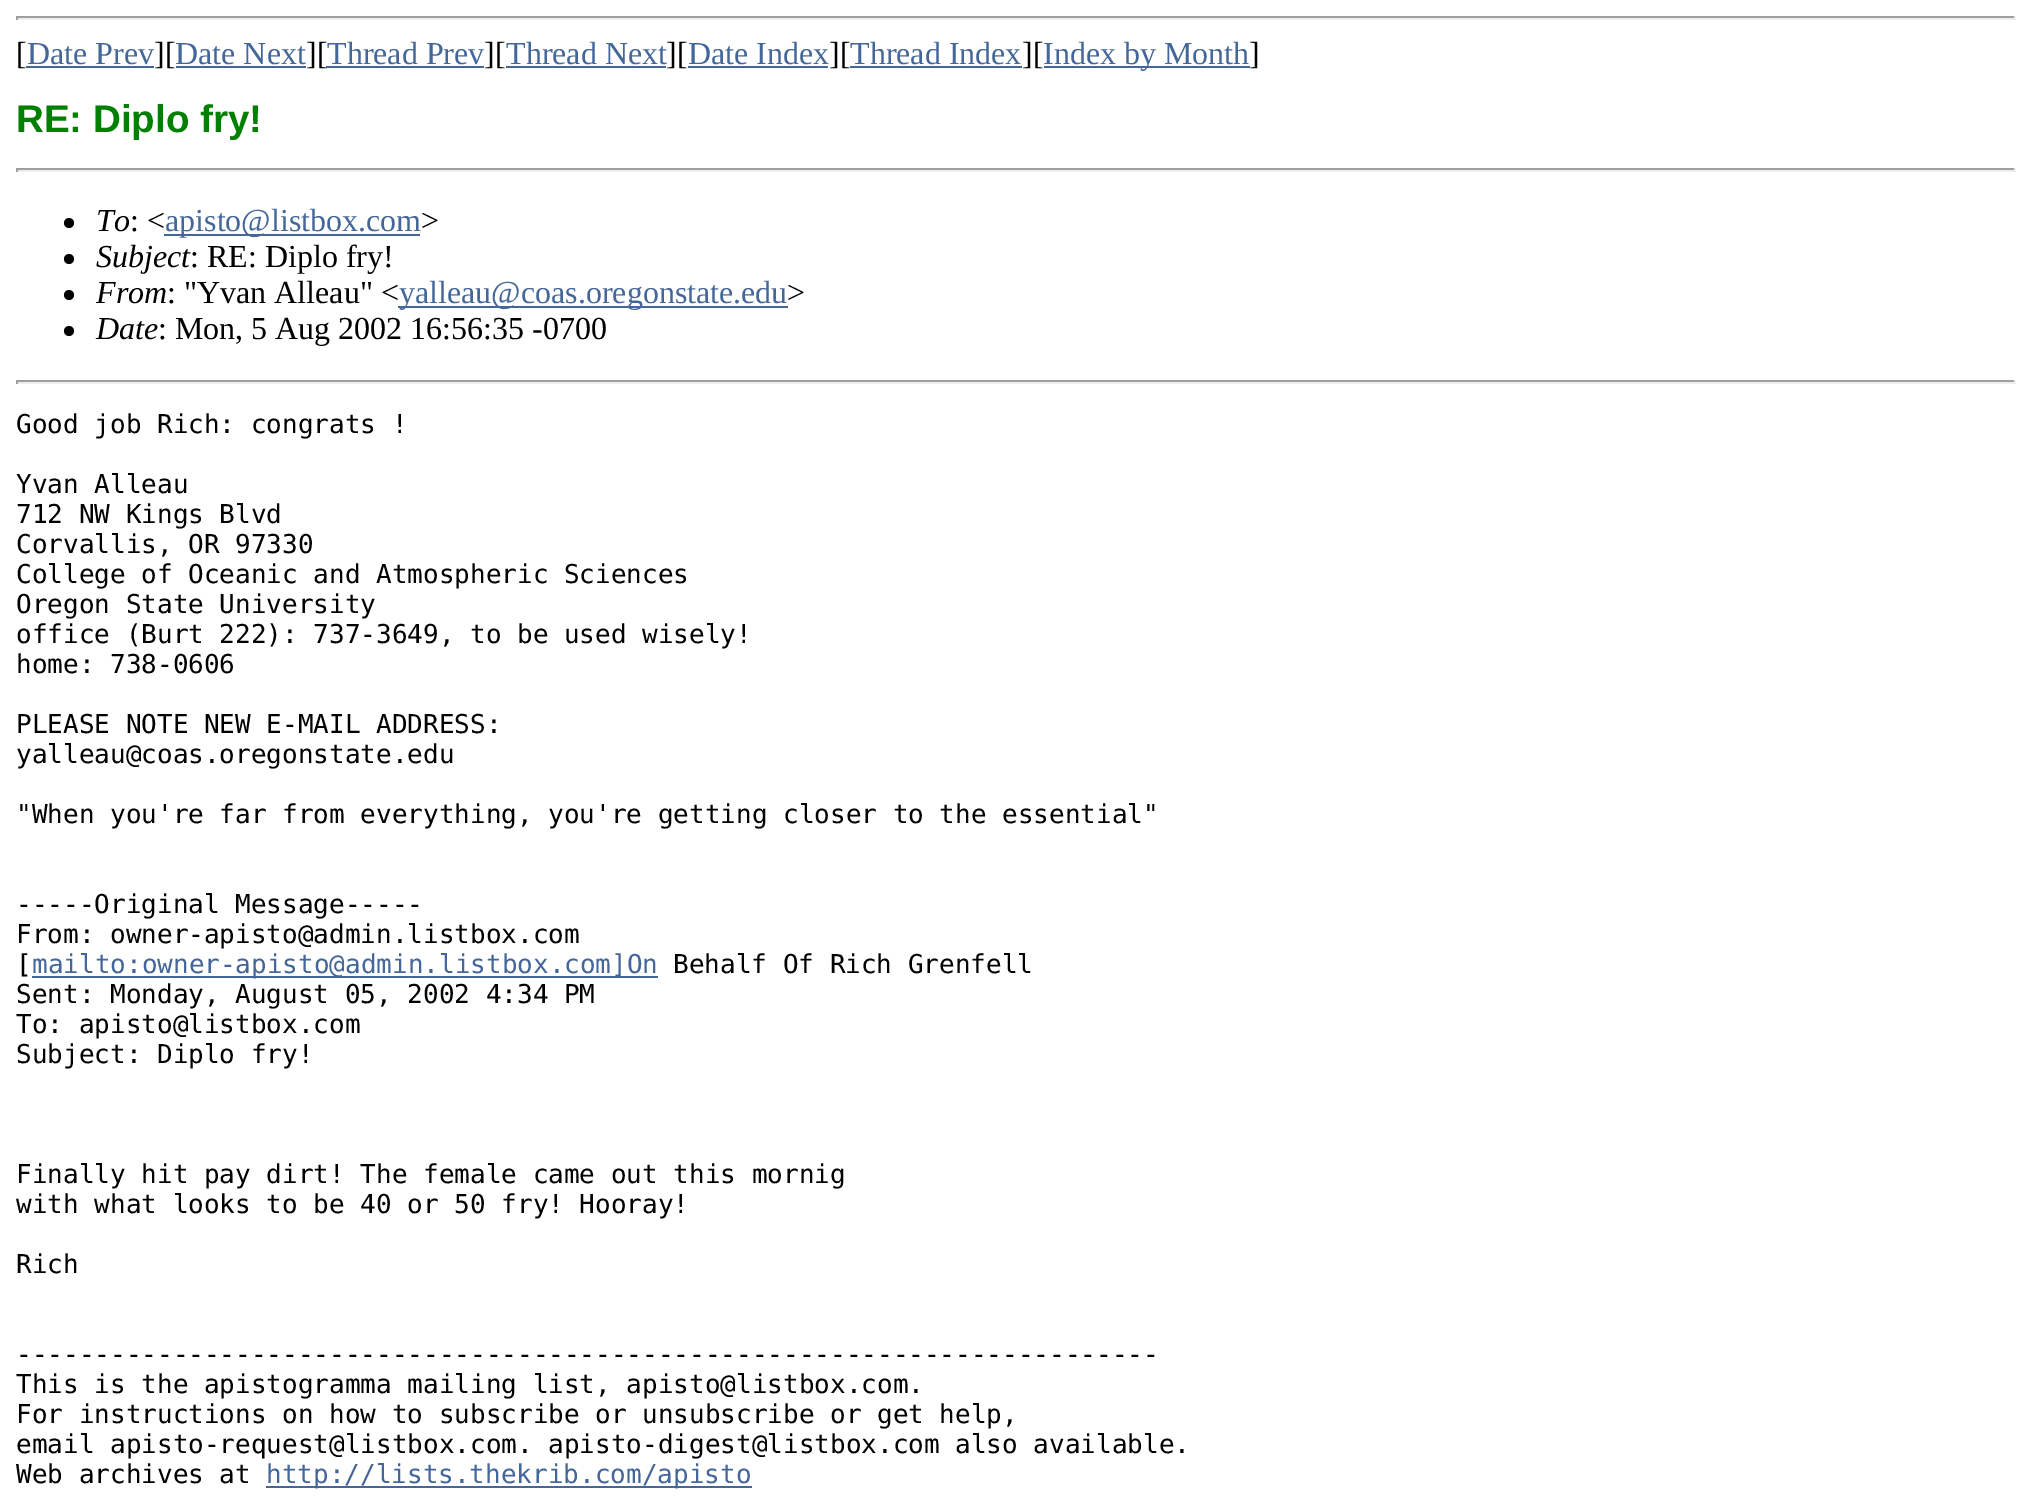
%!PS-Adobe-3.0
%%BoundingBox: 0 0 2032 1505
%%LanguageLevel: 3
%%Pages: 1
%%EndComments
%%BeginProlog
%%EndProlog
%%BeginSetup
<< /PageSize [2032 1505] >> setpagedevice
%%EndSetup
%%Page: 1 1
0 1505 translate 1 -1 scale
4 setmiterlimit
1 setgray
0 0 2032 1505 rectfill
0.624 setgray
16 16 2000 2 rectfill
0.933 setgray
2014 16 2 4 rectfill
16 18 2000 2 rectfill
0.624 setgray
16 16 2 4 rectfill
0.267 0.4 0.6 setrgbcolor
26 66 128 2 rectfill
176 66 130 2 rectfill
326 66 158 2 rectfill
506 66 160 2 rectfill
688 66 140 2 rectfill
850 66 172 2 rectfill
1044 66 206 2 rectfill
0.624 setgray
16 168 2000 2 rectfill
0.933 setgray
2014 168 2 4 rectfill
16 170 2000 2 rectfill
0.624 setgray
16 168 2 4 rectfill
0 setgray
newpath 69 223 5 0 360 arc closepath fill
0.267 0.4 0.6 setrgbcolor
164 234 256 2 rectfill
0 setgray
newpath 69 259 5 0 360 arc closepath fill
newpath 69 295 5 0 360 arc closepath fill
0.267 0.4 0.6 setrgbcolor
398 306 390 2 rectfill
0 setgray
newpath 69 331 5 0 360 arc closepath fill
0.624 setgray
16 380 2000 2 rectfill
0.933 setgray
2014 380 2 4 rectfill
16 382 2000 2 rectfill
0.624 setgray
16 380 2 4 rectfill
0.267 0.4 0.6 setrgbcolor
32 976 626 2 rectfill
266 1486 486 2 rectfill
/LiberationSerif-Regular [32 0 0 -32 0 0] selectfont
0 setgray
16 64 moveto ([) show
0.267 0.4 0.6 setrgbcolor
27 64 moveto (Date Prev) show
0 setgray
154 64 moveto (][) show
0.267 0.4 0.6 setrgbcolor
175 64 moveto (Date Next) show
0 setgray
306 64 moveto (][) show
0.267 0.4 0.6 setrgbcolor
327 64 moveto (Thread Prev) show
0 setgray
484 64 moveto (][) show
0.267 0.4 0.6 setrgbcolor
506 64 moveto (Thread Next) show
0 setgray
666 64 moveto (][) show
0.267 0.4 0.6 setrgbcolor
688 64 moveto (Date Index) show
0 setgray
829 64 moveto (][) show
0.267 0.4 0.6 setrgbcolor
850 64 moveto (Thread Index) show
0 setgray
1022 64 moveto (][) show
0.267 0.4 0.6 setrgbcolor
1043 64 moveto (Index by Month) show
0 setgray
1249 64 moveto (]) show
/LiberationSans-Bold [38.5 0 0 -38.5 0 0] selectfont
0 0.502 0 setrgbcolor
16 132 moveto (RE: Diplo fry!) show
/LiberationSerif-Italic [32 0 0 -32 0 0] selectfont
0 setgray
96 231 moveto (To) show
/LiberationSerif-Regular [32 0 0 -32 0 0] selectfont
130 231 moveto (: <) show
0.267 0.4 0.6 setrgbcolor
165 231 moveto (apisto@listbox.com) show
0 setgray
421 231 moveto (>) show
/LiberationSerif-Italic [32 0 0 -32 0 0] selectfont
96 267 moveto (Subject) show
/LiberationSerif-Regular [32 0 0 -32 0 0] selectfont
190 267 moveto (: RE: Diplo fry!) show
/LiberationSerif-Italic [32 0 0 -32 0 0] selectfont
96 303 moveto (From) show
/LiberationSerif-Regular [32 0 0 -32 0 0] selectfont
167 303 moveto (: "Yvan Alleau" <) show
0.267 0.4 0.6 setrgbcolor
399 303 moveto (yalleau@coas.oregonstate.edu) show
0 setgray
787 303 moveto (>) show
/LiberationSerif-Italic [32 0 0 -32 0 0] selectfont
96 339 moveto (Date) show
/LiberationSerif-Regular [32 0 0 -32 0 0] selectfont
158 339 moveto (: Mon, 5 Aug 2002 16:56:35 -0700) show
/DejaVuSansMono-Regular [26 0 0 -26 0 0] selectfont
16 433 moveto (Good job Rich: congrats !) show
16 493 moveto (Yvan Alleau) show
16 523 moveto (712 NW Kings Blvd) show
16 553 moveto (Corvallis, OR 97330) show
16 583 moveto (College of Oceanic and Atmospheric Sciences) show
16 613 moveto (Oregon State University) show
16 643 moveto (office \(Burt 222\): 737-3649, to be used wisely!) show
16 673 moveto (home: 738-0606) show
16 733 moveto (PLEASE NOTE NEW E-MAIL ADDRESS:) show
16 763 moveto (yalleau@coas.oregonstate.edu) show
16 823 moveto ("When you're far from everything, you're getting closer to the essential") show
16 913 moveto (-----Original Message-----) show
16 943 moveto (From: owner-apisto@admin.listbox.com) show
16 973 moveto ([) show
0.267 0.4 0.6 setrgbcolor
32 973 moveto (mailto:owner-apisto@admin.listbox.com]On) show
0 setgray
673 973 moveto (Behalf Of Rich Grenfell) show
16 1003 moveto (Sent: Monday, August 05, 2002 4:34 PM) show
16 1033 moveto (To: apisto@listbox.com) show
16 1063 moveto (Subject: Diplo fry!) show
16 1183 moveto (Finally hit pay dirt! The female came out this mornig) show
16 1213 moveto (with what looks to be 40 or 50 fry! Hooray!) show
16 1273 moveto (Rich) show
16 1363 moveto (-------------------------------------------------------------------------) show
16 1393 moveto (This is the apistogramma mailing list, apisto@listbox.com.) show
16 1423 moveto (For instructions on how to subscribe or unsubscribe or get help,) show
16 1453 moveto (email apisto-request@listbox.com. apisto-digest@listbox.com also available.) show
16 1483 moveto (Web archives at) show
0.267 0.4 0.6 setrgbcolor
266 1483 moveto (http://lists.thekrib.com/apisto) show
showpage
%%EOF
